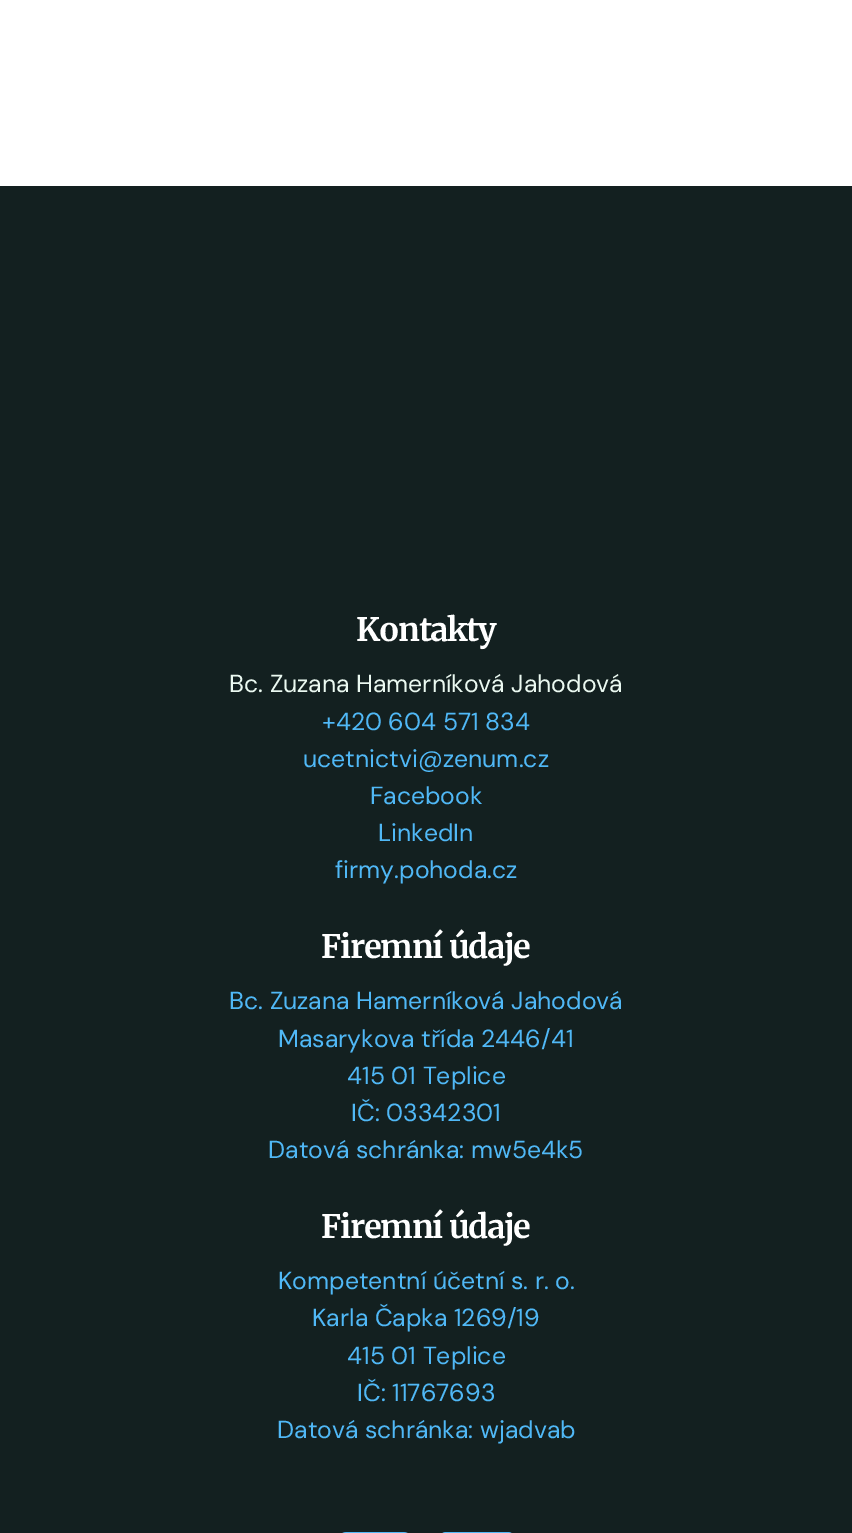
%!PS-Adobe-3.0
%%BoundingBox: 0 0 852 1533
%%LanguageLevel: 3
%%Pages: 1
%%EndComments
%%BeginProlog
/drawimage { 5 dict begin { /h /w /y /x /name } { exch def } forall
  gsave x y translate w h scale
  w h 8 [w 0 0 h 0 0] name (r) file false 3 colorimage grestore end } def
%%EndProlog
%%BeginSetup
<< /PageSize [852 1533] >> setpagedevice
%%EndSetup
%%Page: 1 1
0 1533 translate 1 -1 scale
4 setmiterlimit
1 setgray
0 0 852 1533 rectfill
0.075 0.125 0.125 setrgbcolor
0 186 852 1347 rectfill
(images/1.raw) 342 1532 66 1 drawimage
(images/2.raw) 442 1532 70 1 drawimage
/Merriweather-Bold [32.25 0 0 -32.25 0 0] selectfont
1 setgray
356 641 moveto -1.25 0 (Kontakty) ashow
/DMSans-Regular [24.75 0 0 -24.75 0 0] selectfont
0.922 0.976 0.945 setrgbcolor
229 692 moveto (Bc. Zuzana Hamerníková Jahodová) show
0.314 0.722 0.965 setrgbcolor
322 730 moveto (+420 604 571 834) show
303 767 moveto (ucetnictvi@zenum.cz) show
370 804 moveto (Facebook) show
378 841 moveto (LinkedIn) show
335 878 moveto (firmy.pohoda.cz) show
/Merriweather-Bold [32.25 0 0 -32.25 0 0] selectfont
1 setgray
321 958 moveto -1.25 0 (Firemní údaje) ashow
/DMSans-Regular [24.75 0 0 -24.75 0 0] selectfont
0.314 0.722 0.965 setrgbcolor
229 1009 moveto (Bc. Zuzana Hamerníková Jahodová) show
278 1047 moveto (Masarykova třída 2446/41) show
347 1084 moveto (415 01 Teplice) show
351 1121 moveto (IČ: 03342301) show
268 1158 moveto (Datová schránka: mw5e4k5) show
/Merriweather-Bold [32.25 0 0 -32.25 0 0] selectfont
1 setgray
321 1238 moveto -1.25 0 (Firemní údaje) ashow
/DMSans-Regular [24.75 0 0 -24.75 0 0] selectfont
0.314 0.722 0.965 setrgbcolor
278 1289 moveto (Kompetentní účetní s. r. o.) show
312 1326 moveto (Karla Čapka 1269/19) show
347 1364 moveto (415 01 Teplice) show
357 1401 moveto (IČ: 11767693) show
277 1438 moveto (Datová schránka: wjadvab) show
showpage
%%EOF
